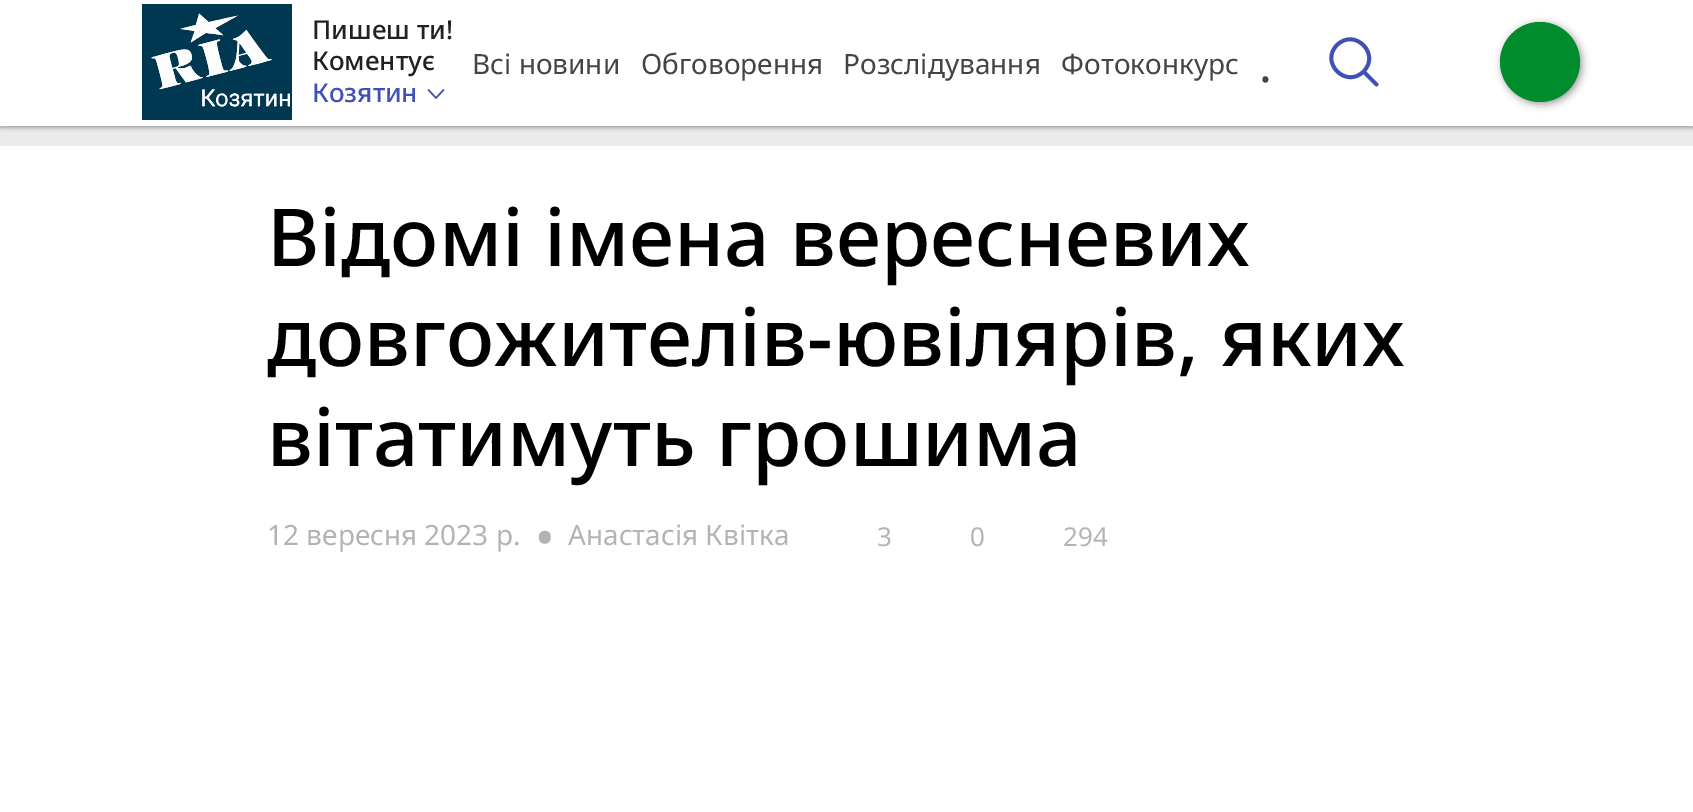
%!PS-Adobe-3.0
%%BoundingBox: 0 0 1693 812
%%LanguageLevel: 3
%%Pages: 1
%%EndComments
%%BeginProlog
/setalpha { dup .setfillconstantalpha .setstrokeconstantalpha } def
/rrect { 5 dict begin { /r /h /w /y /x } { exch def } forall
  x r add y moveto x w add y 2 copy h add r arct x w add y h add x 1 index r arct
  x y h add x y r arct x y 2 copy exch w add exch r arct closepath end } def
/softshadow { 12 dict begin { /a /b /q /h /w /y /x } { exch def } forall gsave /was 0 def
  9 -2 -9 { dup b mul 4 div /e exch def 1 sub .425 mul 2.718 exch exp 1 add a .99 .min exch div /now exch def
    1 1 now sub 1 was sub div sub setalpha /was now def
    w h .min e 2 mul add 0 gt { x e sub y e sub w e 2 mul add h e 2 mul add
      q e add b .6 mul add w h .min 2 div e add .min 0 .max rrect fill } if } for grestore end } def
/drawimage { 5 dict begin { /h /w /y /x /name } { exch def } forall
  gsave x y translate w h scale
  w h 8 [w 0 0 h 0 0] name (r) file false 3 colorimage grestore end } def
%%EndProlog
%%BeginSetup
<< /PageSize [1693 812] /PageUsesTransparency true >> setpagedevice
%%EndSetup
%%Page: 1 1
0 .pushpdf14devicefilter
0 812 translate 1 -1 scale
4 setmiterlimit
0.918 setgray
0 0 1693 812 rectfill
0 setgray
0 2 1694 126 0 2 0.3 softshadow
1 setgray
0 0 1693 126 rectfill
(images/1.raw) 142 4 150 116 drawimage
0.247 0.318 0.71 setrgbcolor
1.5 setlinewidth
1 setlinecap
1 setlinejoin
newpath 443.5 90 moveto 436 98 lineto 428.5 90 lineto stroke
3.8 setlinewidth
newpath 1376.5 84.5 moveto 1363.5 71.5 lineto 1363.5 71.5 moveto 1381 54 1354.5 27.5 1337 45 curveto 1319.5 62.5 1346 89 1363.5 71.5 curveto closepath stroke
0 setgray
1502 24 80 80 40 4 0.4 softshadow
0 0.545 0.176 setrgbcolor
newpath 1540 62 40 0 360 arc closepath fill
1 setgray
0 146 1693 666 rectfill
/NotoSans-Medium [26 0 0 -26 0 0] selectfont
0.129 setgray
312 39 moveto (Пишеш ти!) show
312 70 moveto (Коментує) show
0.247 0.318 0.71 setrgbcolor
312 102 moveto (Козятин) show
/NotoSans-Regular [28 0 0 -28 0 0] selectfont
0.267 setgray
472 74 moveto (Всі новини) show
641 74 moveto (Обговорення) show
843 74 moveto (Розслідування) show
1061 74 moveto (Фотоконкурс) show
/NotoSans-Regular [48 0 0 -48 0 0] selectfont
1259 82 moveto (.) show
/NotoSans-Medium [80 0 0 -80 0 0] selectfont
0 setgray
267 266 moveto (Відомі імена вересневих) show
267 366 moveto (довгожителів-ювілярів, яких) show
267 466 moveto (вітатимуть грошима) show
/NotoSans-Regular [28 0 0 -28 0 0] selectfont
0.702 setgray
267 545 moveto (12 вересня 2023 р.) show
/NotoSans-Regular [96 0 0 -96 0 0] selectfont
532 571 moveto (·) show
/NotoSans-Regular [28 0 0 -28 0 0] selectfont
568 545 moveto (Анастасія Квітка) show
/NotoSans-Regular [26 0 0 -26 0 0] selectfont
877 546 moveto (3) show
970 546 moveto (0) show
1063 546 moveto (294) show
.poppdf14devicefilter showpage
%%EOF
